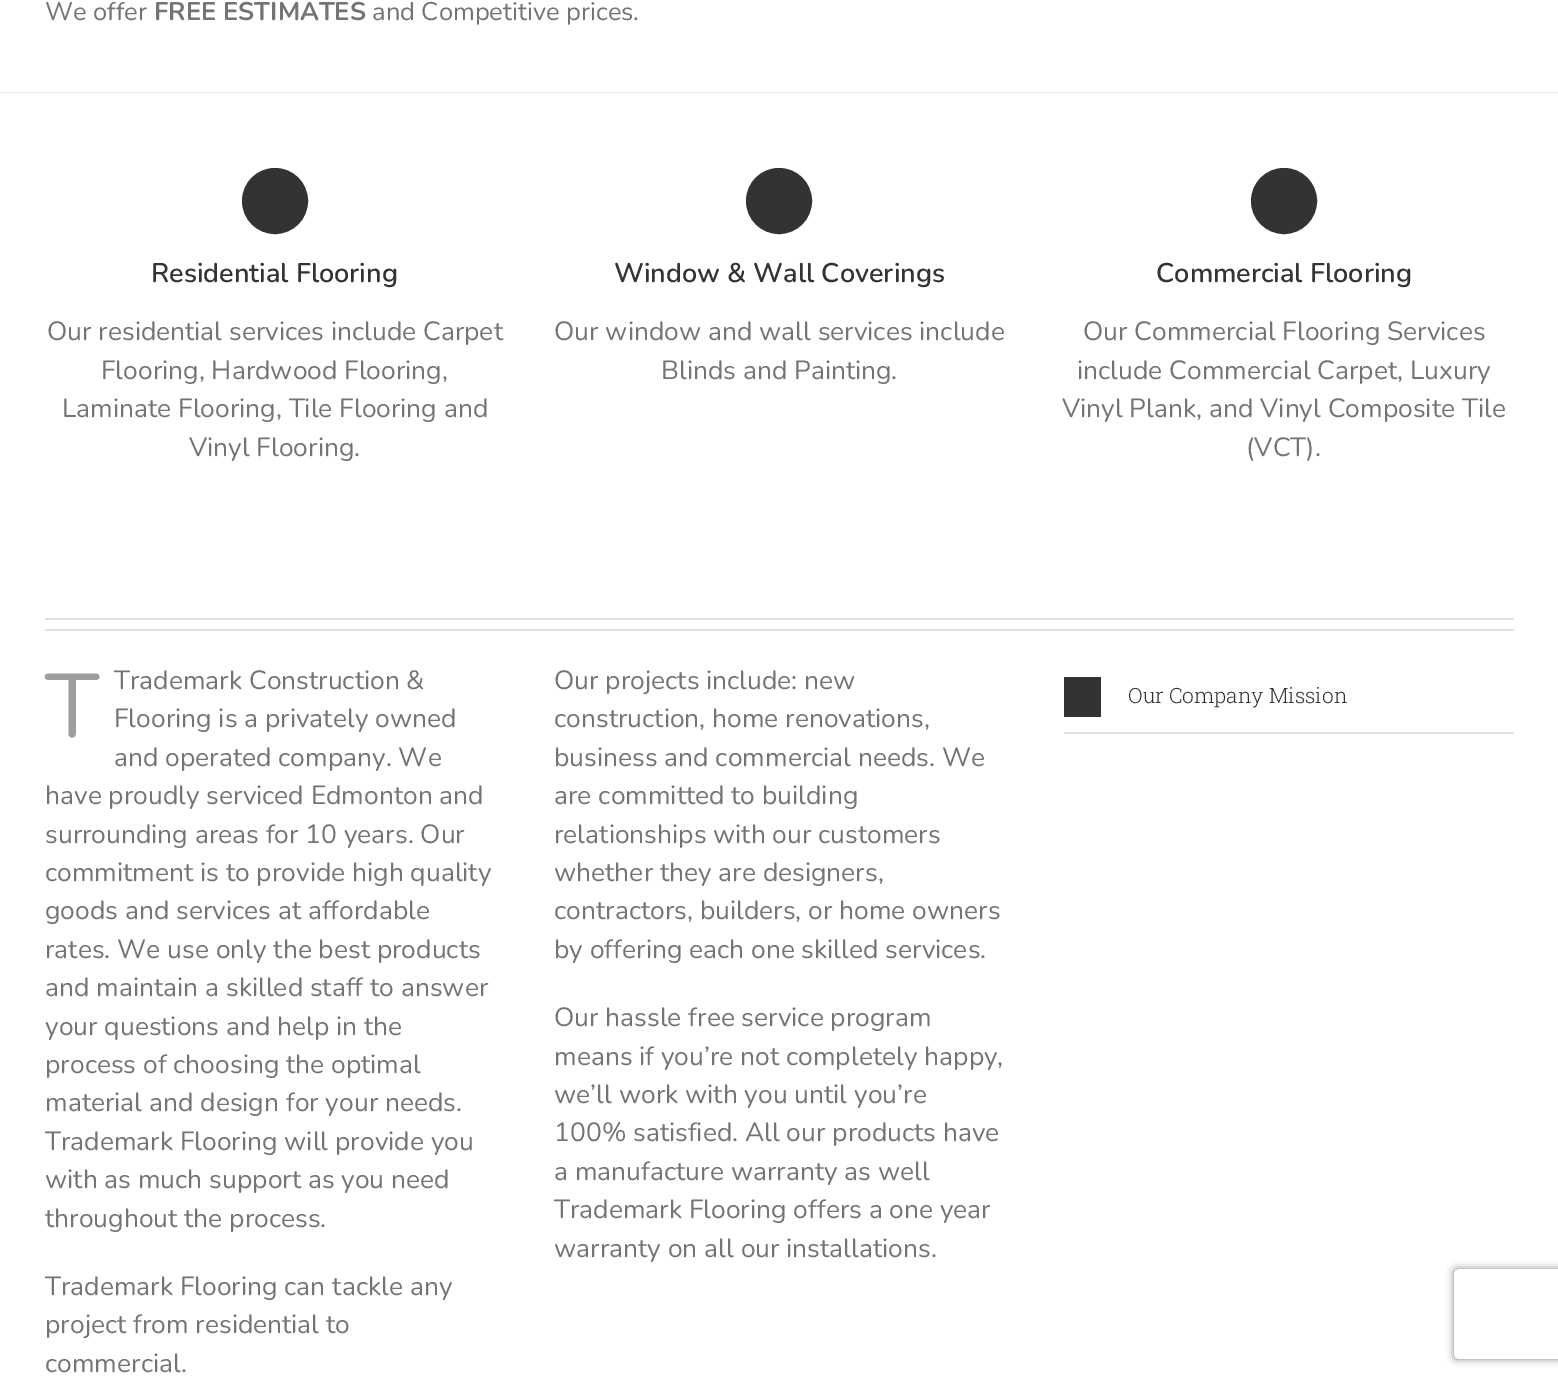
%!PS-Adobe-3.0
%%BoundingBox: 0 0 1558 1380
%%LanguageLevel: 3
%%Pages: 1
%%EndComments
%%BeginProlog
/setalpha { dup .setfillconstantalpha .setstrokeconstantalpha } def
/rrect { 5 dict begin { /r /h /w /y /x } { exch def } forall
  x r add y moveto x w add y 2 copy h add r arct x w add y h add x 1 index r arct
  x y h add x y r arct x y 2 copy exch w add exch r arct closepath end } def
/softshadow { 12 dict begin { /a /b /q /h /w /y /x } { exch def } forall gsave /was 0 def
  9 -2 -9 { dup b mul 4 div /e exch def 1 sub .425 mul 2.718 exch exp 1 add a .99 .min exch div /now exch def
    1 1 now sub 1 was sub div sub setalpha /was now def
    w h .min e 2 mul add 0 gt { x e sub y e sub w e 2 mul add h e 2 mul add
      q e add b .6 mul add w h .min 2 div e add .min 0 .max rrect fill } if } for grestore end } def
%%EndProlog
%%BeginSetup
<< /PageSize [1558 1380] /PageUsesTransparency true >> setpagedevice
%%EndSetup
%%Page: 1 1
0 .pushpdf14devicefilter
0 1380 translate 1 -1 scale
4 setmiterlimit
1 setgray
0 0 1558 1380 rectfill
0.918 0.914 0.914 setrgbcolor
0 92 1558 1 rectfill
0.2 setgray
newpath 275 201 32 0 360 arc closepath gsave fill grestore
2 setlinewidth
stroke
newpath 779 201 32 0 360 arc closepath gsave fill grestore
stroke
newpath 1284 201 32 0 360 arc closepath gsave fill grestore
stroke
0.878 0.871 0.871 setrgbcolor
45 618 1469 2 rectfill
45 629 1469 2 rectfill
1064 732 450 2 rectfill
0.2 setgray
1064 677 37 40 rectfill
gsave
newpath 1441 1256 moveto 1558 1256 lineto 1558 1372 lineto 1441 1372 lineto closepath 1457 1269 moveto 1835 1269 lineto 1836.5 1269 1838 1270.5 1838 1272 curveto 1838 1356 lineto 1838 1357.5 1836.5 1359 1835 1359 curveto 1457 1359 lineto 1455.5 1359 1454 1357.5 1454 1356 curveto 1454 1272 lineto 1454 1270.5 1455.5 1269 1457 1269 curveto closepath eoclip newpath
0.502 setgray
1454 1269 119 90 3 4 1 softshadow
grestore
/Nunito-Regular [25.5 0 0 -25.5 0 0] selectfont
0.455 setgray
45 20 moveto (We offer) show
/Nunito-Bold [25.5 0 0 -25.5 0 0] selectfont
154 20 moveto (FREE ESTIMATES) show
/Nunito-Regular [25.5 0 0 -25.5 0 0] selectfont
372 20 moveto (and Competitive prices.) show
/Nunito-SemiBold [27 0 0 -27 0 0] selectfont
0.2 setgray
151 282 moveto (Residential Flooring) show
/Nunito-Regular [26.4 0 0 -26.4 0 0] selectfont
0.455 setgray
47 340 moveto (Our residential services include Carpet) show
101 379 moveto (Flooring, Hardwood Flooring,) show
62 417 moveto (Laminate Flooring, Tile Flooring and) show
189 456 moveto (Vinyl Flooring.) show
/Nunito-SemiBold [27 0 0 -27 0 0] selectfont
0.2 setgray
614 282 moveto (Window & Wall Coverings) show
/Nunito-Regular [26.4 0 0 -26.4 0 0] selectfont
0.455 setgray
554 340 moveto (Our window and wall services include) show
661 379 moveto (Blinds and Painting.) show
/Nunito-SemiBold [27 0 0 -27 0 0] selectfont
0.2 setgray
1156 282 moveto (Commercial Flooring) show
/Nunito-Regular [26.4 0 0 -26.4 0 0] selectfont
0.455 setgray
1083 340 moveto (Our Commercial Flooring Services) show
1077 379 moveto (include Commercial Carpet, Luxury) show
1062 417 moveto (Vinyl Plank, and Vinyl Composite Tile) show
1246 456 moveto (\(VCT\).) show
/Nunito-Regular [90 0 0 -90 0 0] selectfont
0.62 setgray
45 737 moveto (T) show
/Nunito-Regular [26.4 0 0 -26.4 0 0] selectfont
0.455 setgray
114 689 moveto (Trademark Construction &) show
114 727 moveto (Flooring is a privately owned) show
114 766 moveto (and operated company. We) show
45 804 moveto (have proudly serviced Edmonton and) show
45 843 moveto (surrounding areas for 10 years. Our) show
45 881 moveto (commitment is to provide high quality) show
45 919 moveto (goods and services at affordable) show
45 958 moveto (rates. We use only the best products) show
45 996 moveto (and maintain a skilled staff to answer) show
45 1035 moveto (your questions and help in the) show
45 1073 moveto (process of choosing the optimal) show
45 1111 moveto (material and design for your needs.) show
45 1150 moveto (Trademark Flooring will provide you) show
45 1188 moveto (with as much support as you need) show
45 1227 moveto (throughout the process.) show
45 1295 moveto (Trademark Flooring can tackle any) show
45 1333 moveto (project from residential to) show
45 1372 moveto (commercial.) show
554 689 moveto (Our projects include: new) show
554 727 moveto (construction, home renovations,) show
554 766 moveto (business and commercial needs. We) show
554 804 moveto (are committed to building) show
554 843 moveto (relationships with our customers) show
554 881 moveto (whether they are designers,) show
554 919 moveto (contractors, builders, or home owners) show
554 958 moveto (by offering each one skilled services.) show
554 1026 moveto (Our hassle free service program) show
554 1065 moveto (means if you’re not completely happy,) show
554 1103 moveto (we’ll work with you until you’re) show
554 1141 moveto (100% satisfied. All our products have) show
554 1180 moveto (a manufacture warranty as well) show
554 1218 moveto (Trademark Flooring offers a one year) show
554 1257 moveto (warranty on all our installations.) show
/RobotoSlab-Light [21 0 0 -21 0 0] selectfont
0.2 setgray
1128 703 moveto (Our Company Mission) show
.poppdf14devicefilter showpage
%%EOF
